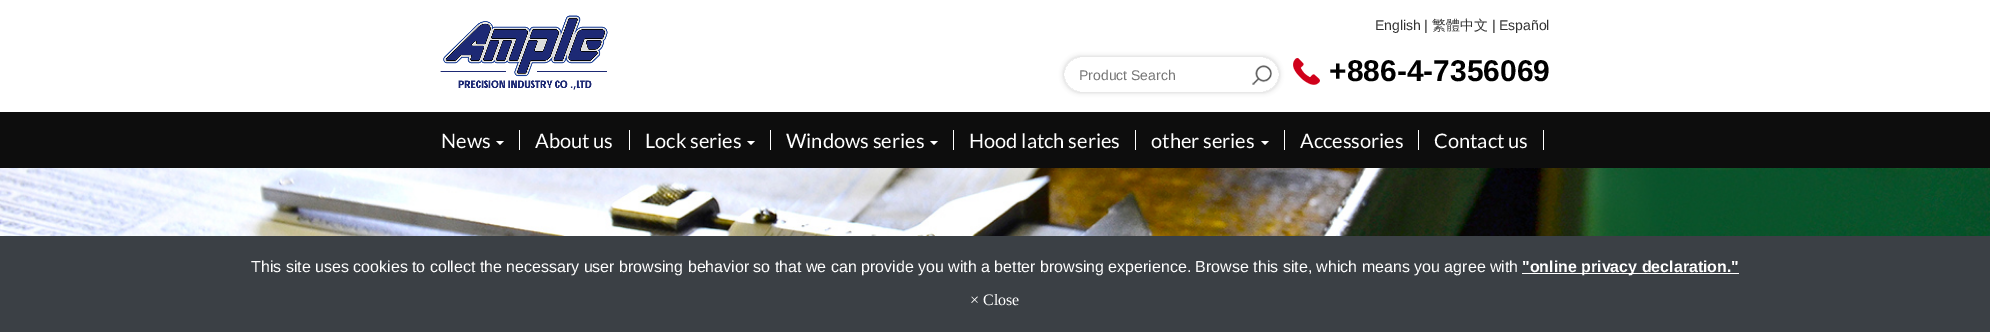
%!PS-Adobe-3.0
%%BoundingBox: 0 0 1990 332
%%LanguageLevel: 3
%%Pages: 1
%%EndComments
%%BeginProlog
/setalpha { dup .setfillconstantalpha .setstrokeconstantalpha } def
/rrect { 5 dict begin { /r /h /w /y /x } { exch def } forall
  x r add y moveto x w add y 2 copy h add r arct x w add y h add x 1 index r arct
  x y h add x y r arct x y 2 copy exch w add exch r arct closepath end } def
/softshadow { 12 dict begin { /a /b /q /h /w /y /x } { exch def } forall gsave /was 0 def
  9 -2 -9 { dup b mul 4 div /e exch def 1 sub .425 mul 2.718 exch exp 1 add a .99 .min exch div /now exch def
    1 1 now sub 1 was sub div sub setalpha /was now def
    w h .min e 2 mul add 0 gt { x e sub y e sub w e 2 mul add h e 2 mul add
      q e add b .6 mul add w h .min 2 div e add .min 0 .max rrect fill } if } for grestore end } def
/drawimage { 5 dict begin { /h /w /y /x /name } { exch def } forall
  gsave x y translate w h scale
  w h 8 [w 0 0 h 0 0] name (r) file false 3 colorimage grestore end } def
%%EndProlog
%%BeginSetup
<< /PageSize [1990 332] /PageUsesTransparency true >> setpagedevice
%%EndSetup
%%Page: 1 1
0 .pushpdf14devicefilter
0 332 translate 1 -1 scale
4 setmiterlimit
1 setgray
0 0 1990 332 rectfill
(images/1.raw) 440 15 168 75 drawimage
gsave
newpath 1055 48 moveto 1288 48 lineto 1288 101 lineto 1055 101 lineto closepath 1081.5 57 moveto 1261.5 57 lineto 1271 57 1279 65 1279 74.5 curveto 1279 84 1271 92 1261.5 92 curveto 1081.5 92 lineto 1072 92 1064 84 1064 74.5 curveto 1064 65 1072 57 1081.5 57 curveto closepath eoclip newpath
0 setgray
1064 57 215 35 17.5 2.5 0.2 softshadow
grestore
0.5 setalpha
1064 57 215 35 17.5 rrect fill
1 setalpha
(images/2.raw) 1252 65 20 20 drawimage
(images/3.raw) 1293 58 27 27 drawimage
0.051 setgray
0 112 1990 56 rectfill
1 setgray
519 130 1 20 rectfill
newpath 496 141 moveto 504 141 lineto 500 145 lineto closepath fill
629 130 1 20 rectfill
770 130 1 20 rectfill
newpath 747 141 moveto 755 141 lineto 751 145 lineto closepath fill
953 130 1 20 rectfill
newpath 930 141 moveto 938 141 lineto 934 145 lineto closepath fill
1135 130 1 20 rectfill
1284 130 1 20 rectfill
newpath 1261 141 moveto 1269 141 lineto 1265 145 lineto closepath fill
1418 130 1 20 rectfill
1543 130 1 20 rectfill
(images/4.raw) 0 168 1990 68 drawimage
0.231 0.251 0.271 setrgbcolor
0 236 1990 96 rectfill
1 setgray
1522 273 217 1 rectfill
/LiberationSans-Regular [14 0 0 -14 0 0] selectfont
0.196 setgray
1375 30 moveto (English) show
1424 30 moveto (|) show
/WenQuanYiZenHei-Medium [14 0 0 -14 0 0] selectfont
1432 30 moveto (繁體中文) show
/LiberationSans-Regular [14 0 0 -14 0 0] selectfont
1492 30 moveto (|) show
1499 30 moveto (Español) show
0.459 setgray
1079 80 moveto (Product Search) show
/LiberationSans-Bold [30 0 0 -30 0 0] selectfont
0 setgray
1329 81 moveto (+886-4-7356069) show
/Lato-Regular [20 0 0 -20 0 0] selectfont
1 setgray
441 148 moveto (News) show
535 148 moveto (About us) show
645 148 moveto (Lock series) show
786 148 moveto (Windows series) show
969 148 moveto (Hood latch series) show
1151 148 moveto (other series) show
1300 148 moveto (Accessories) show
1434 148 moveto (Contact us) show
/LiberationSans-Regular [16 0 0 -16 0 0] selectfont
251 272 moveto (This site uses cookies to collect the necessary user browsing behavior so that we can provide you with a better browsing experience. Browse this site, which means you agree with) show
/LiberationSans-Bold [16 0 0 -16 0 0] selectfont
1522 272 moveto ("online privacy declaration.") show
/LiberationSerif-Regular [16 0 0 -16 0 0] selectfont
970 305 moveto (× Close) show
.poppdf14devicefilter showpage
%%EOF
